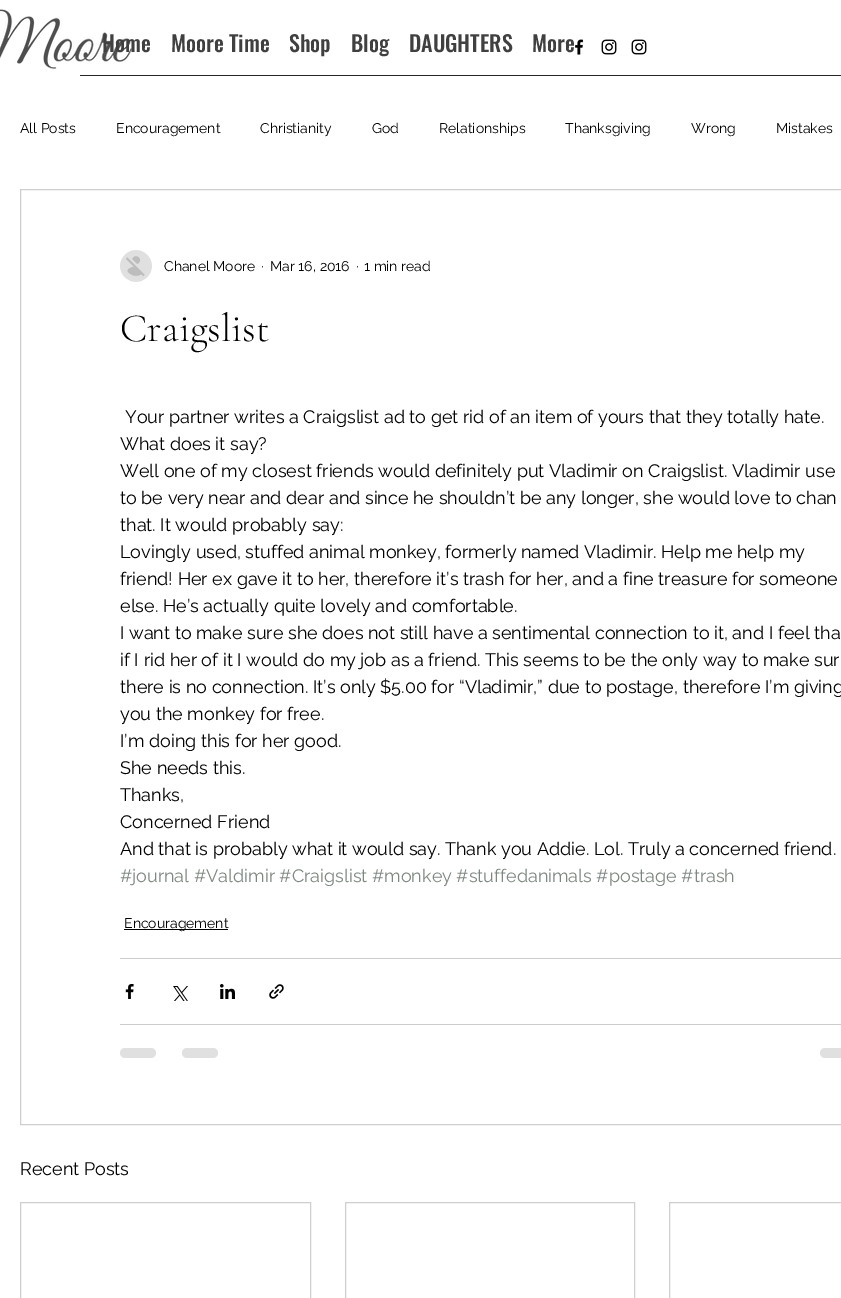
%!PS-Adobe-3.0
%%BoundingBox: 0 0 841 1298
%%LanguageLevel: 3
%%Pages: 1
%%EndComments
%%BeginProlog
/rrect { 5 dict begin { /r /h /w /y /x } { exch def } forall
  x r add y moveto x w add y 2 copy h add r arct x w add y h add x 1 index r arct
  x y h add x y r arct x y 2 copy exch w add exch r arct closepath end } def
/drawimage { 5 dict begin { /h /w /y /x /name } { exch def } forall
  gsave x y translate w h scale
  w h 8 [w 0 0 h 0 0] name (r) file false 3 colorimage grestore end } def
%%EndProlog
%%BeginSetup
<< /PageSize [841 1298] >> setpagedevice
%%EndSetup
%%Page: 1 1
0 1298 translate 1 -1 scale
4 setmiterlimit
1 setgray
0 0 841 1298 rectfill
(images/1.raw) 0 9 133 61 drawimage
(images/2.raw) 575 39 9 16 drawimage
(images/3.raw) 601 39 16 16 drawimage
(images/3.raw) 631 39 16 16 drawimage
0.149 setgray
80 75 761 1 rectfill
0.812 setgray
20.5 189.5 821 935 rectstroke
(images/4.raw) 120 250 32 32 drawimage
0 setgray
124 929 104 1 rectfill
0.8 setgray
120 958 721 1 rectfill
(images/5.raw) 125 984 9 15 drawimage
(images/6.raw) 173 986 15 15 drawimage
(images/7.raw) 220 984 15 15 drawimage
(images/8.raw) 269 984 15 15 drawimage
120 1024 721 1 rectfill
0.878 setgray
120 1048 36 10 5 rrect fill
182 1048 36 10 5 rrect fill
820 1048 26 10 5 rrect fill
0.812 setgray
20.5 1202.5 290 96 rectstroke
345.5 1202.5 289 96 rectstroke
669.5 1202.5 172 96 rectstroke
/Oswald-Medium [22 0 0 -22 0 0] selectfont
0.251 setgray
102 52 moveto (Home) show
171 52 moveto (Moore Time) show
289 52 moveto (Shop) show
351 52 moveto (Blog) show
409 52 moveto (DAUGHTERS) show
532 52 moveto (More) show
/Raleway-Regular [14 0 0 -14 0 0] selectfont
0 setgray
20 133 moveto (All Posts) show
116 133 moveto (Encouragement) show
260 133 moveto (Christianity) show
372 133 moveto (God) show
439 133 moveto (Relationships) show
565 133 moveto (Thanksgiving) show
691 133 moveto (Wrong) show
776 133 moveto (Mistakes) show
164 271 moveto (Chanel Moore) show
261 271 moveto (·) show
270 271 moveto (Mar 16, 2016) show
356 271 moveto (·) show
364 271 moveto (1 min read) show
/CormorantGaramond-Light [40 0 0 -40 0 0] selectfont
120 341 moveto (Craigslist) show
/Raleway-Regular [18 0 0 -18 0 0] selectfont
125 423 moveto (Your partner writes a Craigslist ad to get rid of an item of yours that they totally hate.) show
120 450 moveto (What does it say?) show
120 477 moveto (Well one of my closest friends would definitely put Vladimir on Craigslist. Vladimir use) show
120 504 moveto (to be very near and dear and since he shouldn’t be any longer, she would love to chan) show
120 531 moveto (that. It would probably say:) show
120 558 moveto (Lovingly used, stuffed animal monkey, formerly named Vladimir. Help me help my) show
120 585 moveto (friend! Her ex gave it to her, therefore it’s trash for her, and a fine treasure for someone) show
120 612 moveto (else. He’s actually quite lovely and comfortable.) show
120 639 moveto (I want to make sure she does not still have a sentimental connection to it, and I feel tha) show
120 666 moveto (if I rid her of it I would do my job as a friend. This seems to be the only way to make sur) show
120 693 moveto (there is no connection. It’s only $5.00 for “Vladimir,” due to postage, therefore I’m giving) show
120 720 moveto (you the monkey for free.) show
120 747 moveto (I’m doing this for her good.) show
120 774 moveto (She needs this.) show
120 801 moveto (Thanks,) show
120 828 moveto (Concerned Friend) show
120 855 moveto (And that is probably what it would say. Thank you Addie. Lol. Truly a concerned friend.) show
0.494 0.529 0.498 setrgbcolor
120 882 moveto (#journal #Valdimir #Craigslist #monkey #stuffedanimals #postage #trash) show
/Raleway-Regular [14 0 0 -14 0 0] selectfont
0 setgray
124 928 moveto (Encouragement) show
/Raleway-Regular [18 0 0 -18 0 0] selectfont
20 1175 moveto (Recent Posts) show
showpage
%%EOF
